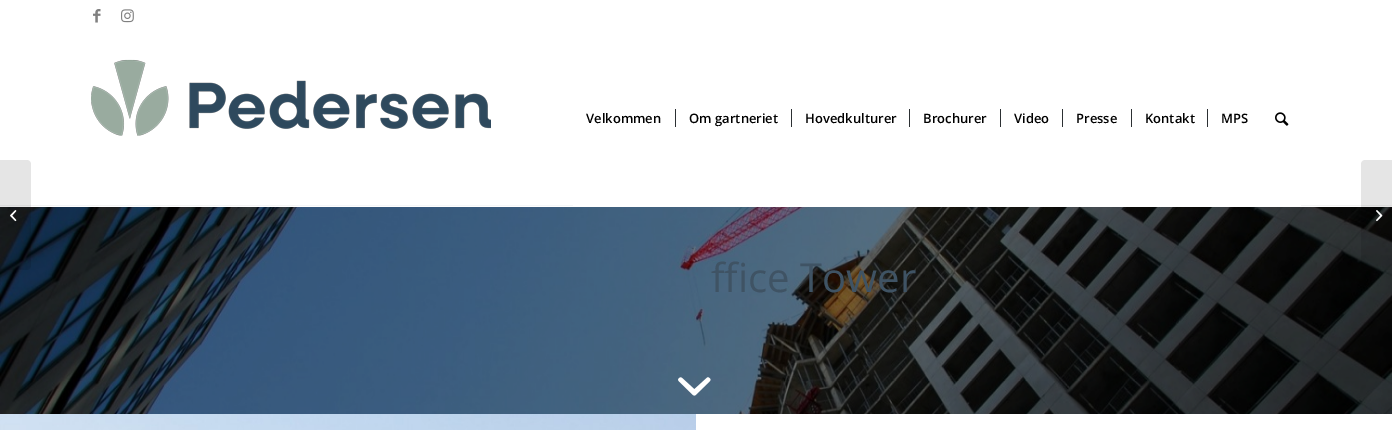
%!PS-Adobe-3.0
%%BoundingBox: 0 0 1392 430
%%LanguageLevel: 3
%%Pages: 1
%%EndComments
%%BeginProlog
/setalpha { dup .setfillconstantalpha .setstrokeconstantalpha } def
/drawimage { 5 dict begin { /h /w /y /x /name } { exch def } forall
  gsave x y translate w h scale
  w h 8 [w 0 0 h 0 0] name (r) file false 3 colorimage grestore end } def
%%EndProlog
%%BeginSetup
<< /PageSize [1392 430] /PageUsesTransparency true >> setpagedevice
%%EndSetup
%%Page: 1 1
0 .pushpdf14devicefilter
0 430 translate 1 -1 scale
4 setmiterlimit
1 setgray
0 0 1392 430 rectfill
(images/1.raw) 93 9 8 14 drawimage
(images/2.raw) 121 9 13 14 drawimage
(images/7.raw) 0 205 1392 209 drawimage
0 206 1392 1 rectfill
(images/3.raw) 91 59 400 77 drawimage
0.95 setalpha
0 205 1392 1 rectfill
1 setalpha
573 205 728 1 rectfill
0.173 0.188 0.2 setrgbcolor
675 109 1 18 rectfill
791 109 1 18 rectfill
909 109 1 18 rectfill
1000 109 1 18 rectfill
1062 109 1 18 rectfill
1131 109 1 18 rectfill
1207 109 1 18 rectfill
(images/4.raw) 1275 112 14 14 drawimage
0.1 setalpha
0 setgray
newpath 0 160 moveto 27 160 lineto 29 160 31 162 31 164 curveto 31 266 lineto 31 268 29 270 27 270 curveto 0 270 lineto closepath fill
1 setalpha
(images/5.raw) 10 210 7 12 drawimage
0.1 setalpha
newpath 1365 160 moveto 1392 160 lineto 1392 270 lineto 1365 270 lineto 1363 270 1361 268 1361 266 curveto 1361 164 lineto 1361 162 1363 160 1365 160 curveto closepath fill
1 setalpha
(images/6.raw) 1376 210 7 12 drawimage
(images/8.raw) 678 377 33 19 drawimage
(images/9.raw) 0 414 696 16 drawimage
/OpenSans-SemiBold [13 0 0 -13 0 0] selectfont
586 123 moveto (Velkommen) show
689 123 moveto (Om gartneriet) show
805 123 moveto (Hovedkulturer) show
923 123 moveto (Brochurer) show
1014 123 moveto (Video) show
1076 123 moveto (Presse) show
1145 123 moveto (Kontakt) show
1221 123 moveto (MPS) show
/OpenSans-Regular [40 0 0 -40 0 0] selectfont
0.247 0.325 0.392 setrgbcolor
711 292 moveto (ffice Tower) show
.poppdf14devicefilter showpage
%%EOF
